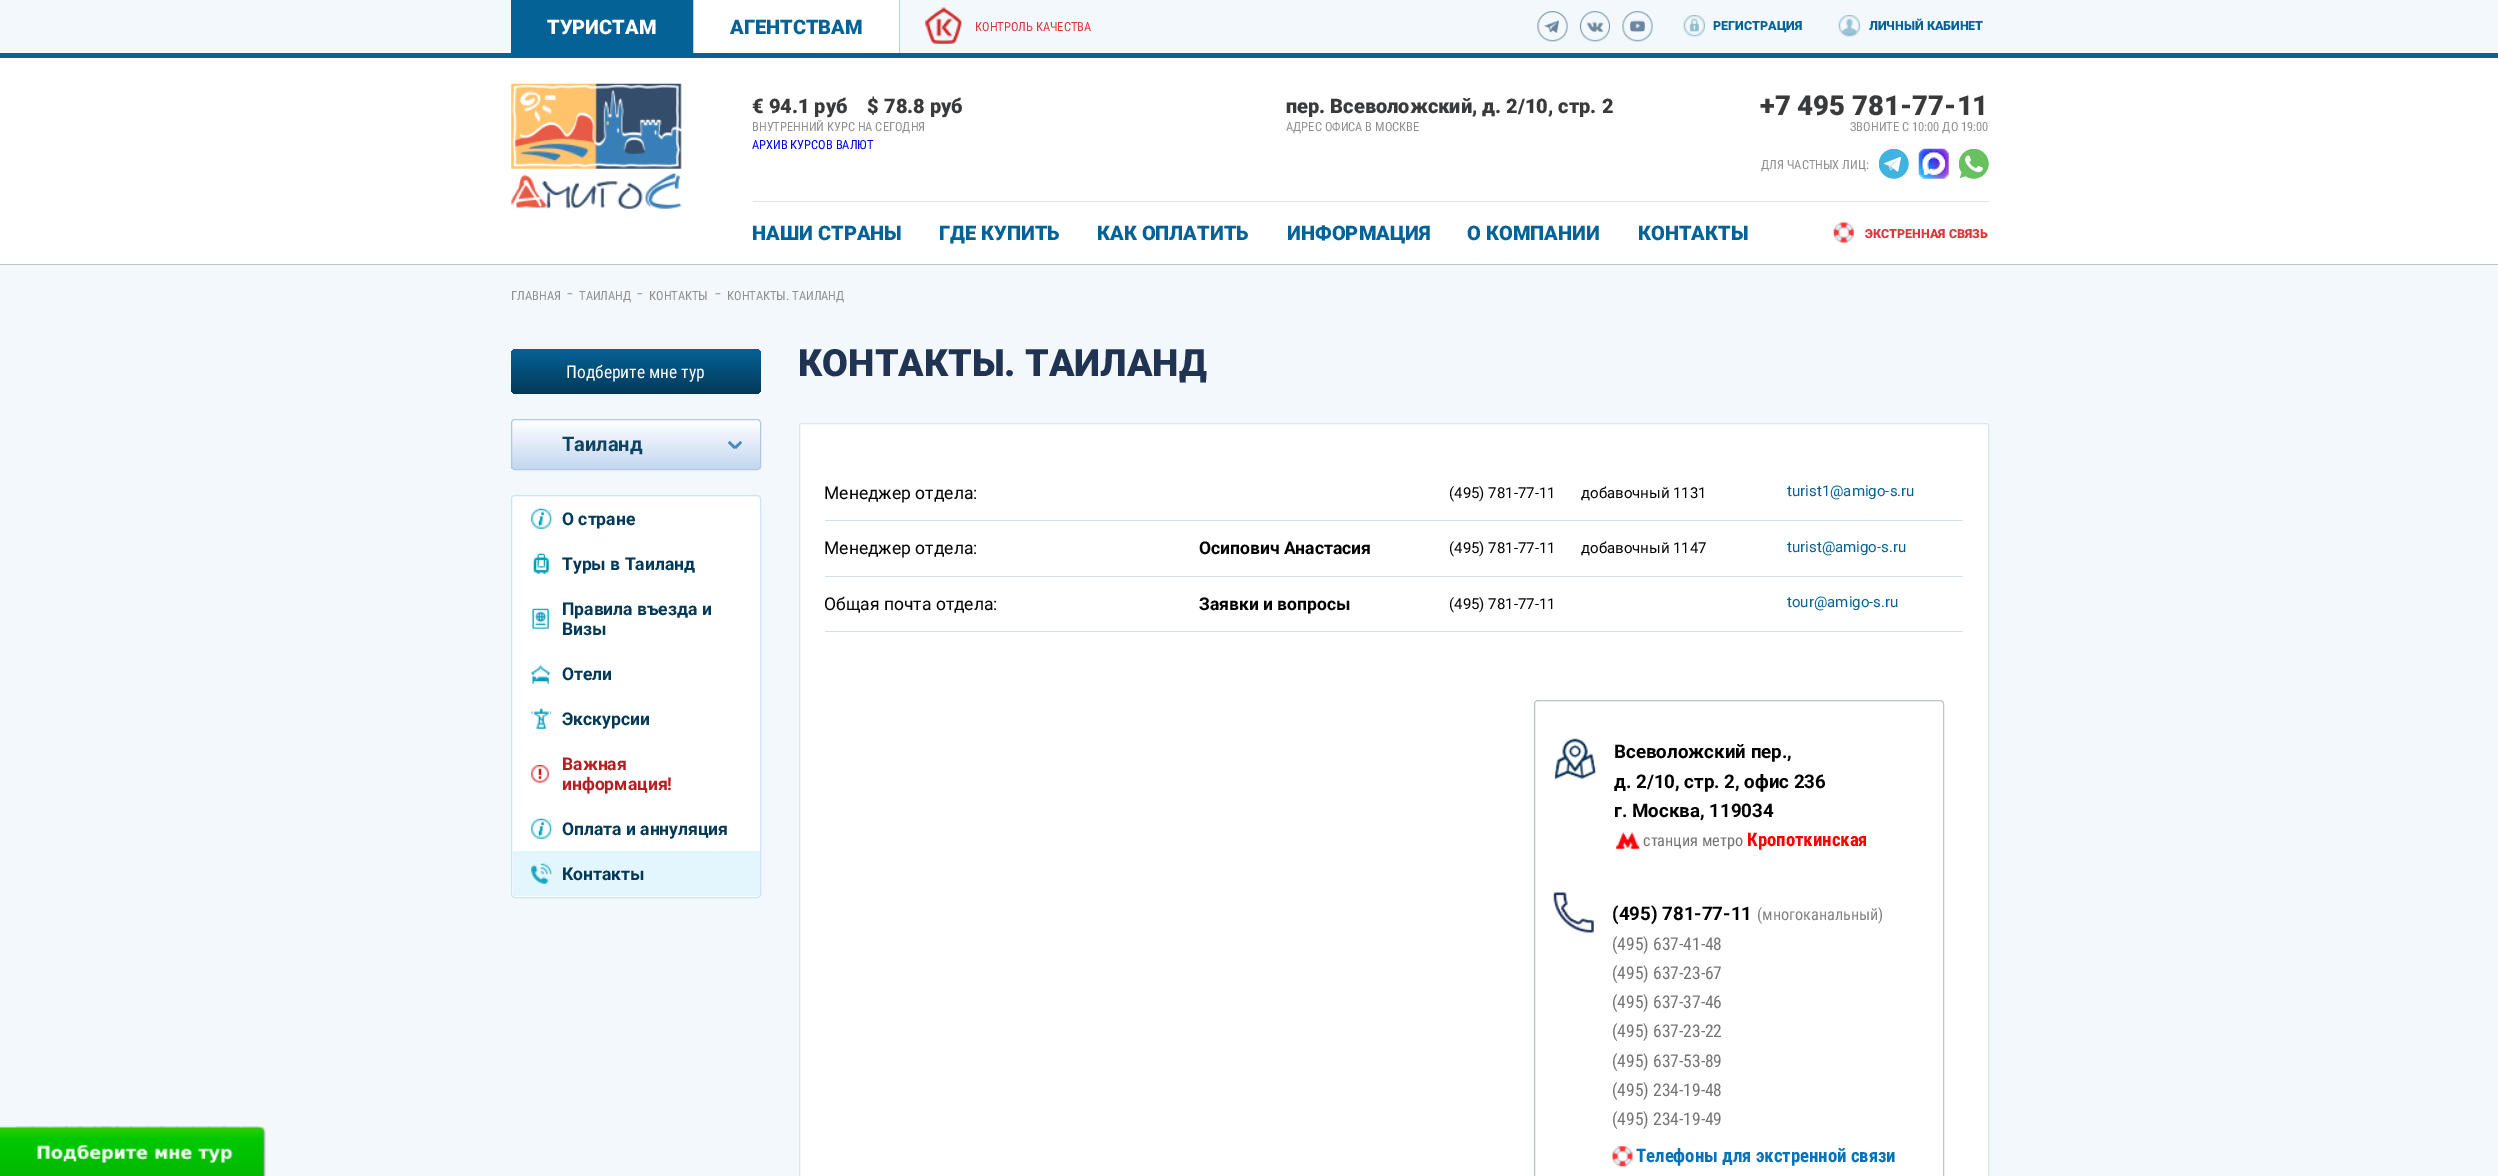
%!PS-Adobe-3.0
%%BoundingBox: 0 0 2498 1176
%%LanguageLevel: 3
%%Pages: 1
%%EndComments
%%BeginProlog
/rrect { 5 dict begin { /r /h /w /y /x } { exch def } forall
  x r add y moveto x w add y 2 copy h add r arct x w add y h add x 1 index r arct
  x y h add x y r arct x y 2 copy exch w add exch r arct closepath end } def
/drawimage { 5 dict begin { /h /w /y /x /name } { exch def } forall
  gsave x y translate w h scale
  w h 8 [w 0 0 h 0 0] name (r) file false 3 colorimage grestore end } def
%%EndProlog
%%BeginSetup
<< /PageSize [2498 1176] >> setpagedevice
%%EndSetup
%%Page: 1 1
0 1176 translate 1 -1 scale
4 setmiterlimit
0.949 0.973 0.984 setrgbcolor
0 0 2498 1176 rectfill
0.02 0.384 0.592 setrgbcolor
511 0 182 53 rectfill
1 setgray
694 0 205 53 rectfill
0.69 0.831 0.89 setrgbcolor
899 0 1 53 rectfill
0.686 0.824 0.894 setrgbcolor
693 0 1 53 rectfill
(images/1.raw) 925 7 37 37 drawimage
(images/2.raw) 1537 11 31 31 drawimage
(images/3.raw) 1580 11 30 31 drawimage
(images/4.raw) 1622 11 31 31 drawimage
(images/5.raw) 1683 15 22 22 drawimage
(images/6.raw) 1838 15 22 22 drawimage
0.02 0.384 0.592 setrgbcolor
0 53 2498 5 rectfill
1 setgray
0 58 2498 206 rectfill
0.714 0.784 0.824 setrgbcolor
0 264 2498 1 rectfill
(images/7.raw) 511 83 171 126 drawimage
0.875 0.894 0.925 setrgbcolor
753 201 1236 1 rectfill
(images/8.raw) 1879 149 30 30 drawimage
(images/9.raw) 1918 148 31 31 drawimage
(images/10.raw) 1959 149 30 30 drawimage
(images/11.raw) 1833 222 21 21 drawimage
(images/12.raw) 0 1126 266 50 drawimage
gsave 511 349 250 45 5 rrect clip newpath
<< /ShadingType 2 /ColorSpace /DeviceRGB /Coords [636 349 636 394] /Extend [true true] /Function << /FunctionType 2 /Domain [0 1] /C0 [0.02 0.384 0.592] /C1 [0.012 0.224 0.345] /N 1 >> >> shfill grestore
gsave
511 419 250 51 4 rrect clip newpath
gsave newpath 511 420 moveto 761 420 lineto 761 469 lineto 511 469 lineto closepath clip newpath
<< /ShadingType 2 /ColorSpace /DeviceRGB /Coords [636 420 636 469] /Extend [true true] /Function << /FunctionType 2 /Domain [0 1] /C0 [1 1 1] /C1 [0.765 0.843 0.941] /N 1 >> >> shfill grestore
grestore
0.69 0.784 0.89 setrgbcolor
511.5 419.5 249 50 3.5 rrect stroke
0.278 0.545 0.706 setrgbcolor
newpath 740.5 441 moveto 742 443 lineto 736 449 lineto 734 447 lineto closepath fill
newpath 729.5 441 moveto 736 447 lineto 734 449 lineto 728 443 lineto closepath fill
1 setgray
511.5 495.5 249 402 3.5 rrect gsave fill grestore
0.8 0.89 1 setrgbcolor
stroke
(images/13.raw) 531 508 21 21 drawimage
(images/14.raw) 533 553 16 21 drawimage
(images/15.raw) 532 608 17 21 drawimage
(images/16.raw) 531 665 20 19 drawimage
(images/17.raw) 531 708 21 21 drawimage
(images/18.raw) 531 765 18 18 drawimage
(images/13.raw) 531 818 21 21 drawimage
0.894 0.965 0.992 setrgbcolor
513 851 247 45 rectfill
(images/19.raw) 531 863 21 21 drawimage
1 setgray
799.5 423.5 1189 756 2 rrect gsave fill grestore
0.871 0.902 0.922 setrgbcolor
stroke
0.827 0.875 0.906 setrgbcolor
825 520 1138 1 rectfill
825 576 1138 1 rectfill
825 631 1138 1 rectfill
0.741 0.769 0.784 setrgbcolor
1534.5 700.5 409 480 3.5 rrect stroke
(images/20.raw) 1554 738 43 41 drawimage
(images/21.raw) 1615 832 25 17 drawimage
(images/22.raw) 1553 892 41 41 drawimage
(images/23.raw) 1612 1146 21 21 drawimage
/Roboto-Black [20 0 0 -20 0 0] selectfont
1 setgray
547 34 moveto (ТУРИСТАМ) show
0.02 0.384 0.592 setrgbcolor
730 34 moveto (АГЕНТСТВАМ) show
/RobotoCondensed-Regular [12.5 0 0 -12.5 0 0] selectfont
0.859 0.22 0.235 setrgbcolor
975 31 moveto (КОНТРОЛЬ КАЧЕСТВА) show
/Roboto-Black [12.5 0 0 -12.5 0 0] selectfont
0.02 0.384 0.592 setrgbcolor
1713 30 moveto (РЕГИСТРАЦИЯ) show
1869 30 moveto (ЛИЧНЫЙ КАБИНЕТ) show
/Roboto-Black [20 0 0 -20 0 0] selectfont
0.224 0.227 0.235 setrgbcolor
752 113 moveto (€ 94.1 руб    $ 78.8 руб) show
/RobotoCondensed-Regular [12.5 0 0 -12.5 0 0] selectfont
0.561 setgray
752 131 moveto (ВНУТРЕННИЙ КУРС НА СЕГОДНЯ) show
0 0 0.933 setrgbcolor
752 149 moveto (АРХИВ КУРСОВ ВАЛЮТ) show
/Roboto-Black [20 0 0 -20 0 0] selectfont
0.224 0.227 0.235 setrgbcolor
1286 113 moveto (пер. Всеволожский, д. 2/10, стр. 2) show
/RobotoCondensed-Regular [12.5 0 0 -12.5 0 0] selectfont
0.561 setgray
1286 131 moveto (АДРЕС ОФИСА В МОСКВЕ) show
/Roboto-Black [27.5 0 0 -27.5 0 0] selectfont
0.224 0.227 0.235 setrgbcolor
1760 115 moveto (+7 495 781-77-11) show
/RobotoCondensed-Regular [12.5 0 0 -12.5 0 0] selectfont
0.561 setgray
1850 131 moveto (ЗВОНИТЕ С 10:00 ДО 19:00) show
1761 169 moveto (ДЛЯ ЧАСТНЫХ ЛИЦ:) show
/Roboto-Black [20 0 0 -20 0 0] selectfont
0.02 0.384 0.592 setrgbcolor
752 240 moveto (НАШИ СТРАНЫ) show
939 240 moveto (ГДЕ КУПИТЬ) show
1097 240 moveto (КАК ОПЛАТИТЬ) show
1287 240 moveto (ИНФОРМАЦИЯ) show
1467 240 moveto (О КОМПАНИИ) show
1638 240 moveto (КОНТАКТЫ) show
/Roboto-Black [12.5 0 0 -12.5 0 0] selectfont
0.859 0.22 0.235 setrgbcolor
1865 238 moveto (ЭКСТРЕННАЯ СВЯЗЬ) show
/RobotoCondensed-Regular [12.5 0 0 -12.5 0 0] selectfont
0.561 setgray
511 300 moveto (ГЛАВНАЯ) show
/Roboto-Light [20 0 0 -20 0 0] selectfont
567 300 moveto (-) show
/RobotoCondensed-Regular [12.5 0 0 -12.5 0 0] selectfont
579 300 moveto (ТАИЛАНД) show
/Roboto-Light [20 0 0 -20 0 0] selectfont
637 300 moveto (-) show
/RobotoCondensed-Regular [12.5 0 0 -12.5 0 0] selectfont
649 300 moveto (КОНТАКТЫ) show
/Roboto-Light [20 0 0 -20 0 0] selectfont
715 300 moveto (-) show
/RobotoCondensed-Regular [12.5 0 0 -12.5 0 0] selectfont
727 300 moveto (КОНТАКТЫ. ТАИЛАНД) show
/RobotoCondensed-Regular [17.5 0 0 -17.5 0 0] selectfont
1 setgray
566 378 moveto (Подберите мне тур) show
/Roboto-Bold [20 0 0 -20 0 0] selectfont
0.063 0.263 0.376 setrgbcolor
562 451 moveto (Таиланд) show
/Roboto-Bold [17.5 0 0 -17.5 0 0] selectfont
0.012 0.224 0.345 setrgbcolor
562 525 moveto (О стране) show
562 570 moveto (Туры в Таиланд) show
562 615 moveto (Правила въезда и) show
562 635 moveto (Визы) show
562 680 moveto (Отели) show
562 725 moveto (Экскурсии) show
0.71 0.118 0.133 setrgbcolor
562 770 moveto (Важная) show
562 790 moveto (информация!) show
0.012 0.224 0.345 setrgbcolor
562 835 moveto (Оплата и аннуляция) show
562 880 moveto (Контакты) show
/Roboto-Black [37.5 0 0 -37.5 0 0] selectfont
0.125 0.2 0.322 setrgbcolor
798 376 moveto (КОНТАКТЫ. ТАИЛАНД) show
/Roboto-Regular [17.5 0 0 -17.5 0 0] selectfont
0 setgray
824 499 moveto (Менеджер отдела:) show
/Roboto-Regular [15 0 0 -15 0 0] selectfont
1449 498 moveto (\(495\) 781-77-11) show
1581 498 moveto (добавочный 1131) show
0.02 0.384 0.592 setrgbcolor
1787 496 moveto (turist1@amigo-s.ru) show
/Roboto-Regular [17.5 0 0 -17.5 0 0] selectfont
0 setgray
824 554 moveto (Менеджер отдела:) show
/Roboto-Bold [17.5 0 0 -17.5 0 0] selectfont
1199 554 moveto (Осипович Анастасия) show
/Roboto-Regular [15 0 0 -15 0 0] selectfont
1449 553 moveto (\(495\) 781-77-11) show
1581 553 moveto (добавочный 1147) show
0.02 0.384 0.592 setrgbcolor
1787 552 moveto (turist@amigo-s.ru) show
/Roboto-Regular [17.5 0 0 -17.5 0 0] selectfont
0 setgray
824 610 moveto (Общая почта отдела:) show
/Roboto-Bold [17.5 0 0 -17.5 0 0] selectfont
1199 610 moveto (Заявки и вопросы) show
/Roboto-Regular [15 0 0 -15 0 0] selectfont
1449 609 moveto (\(495\) 781-77-11) show
0.02 0.384 0.592 setrgbcolor
1787 607 moveto (tour@amigo-s.ru) show
/Roboto-Bold [18.75 0 0 -18.75 0 0] selectfont
0 setgray
1614 758 moveto (Всеволожский пер.,) show
1614 788 moveto (д. 2/10, стр. 2, офис 236) show
1614 817 moveto (г. Москва, 119034) show
/RobotoCondensed-Regular [16.25 0 0 -16.25 0 0] selectfont
0.455 setgray
1643 846 moveto (станция метро) show
/RobotoCondensed-Bold [18.75 0 0 -18.75 0 0] selectfont
1 0 0 setrgbcolor
1747 846 moveto (Кропоткинская) show
/Roboto-Bold [18.75 0 0 -18.75 0 0] selectfont
0 setgray
1612 920 moveto (\(495\) 781-77-11) show
/RobotoCondensed-Regular [16.25 0 0 -16.25 0 0] selectfont
0.502 setgray
1757 920 moveto (\(многоканальный\)) show
/RobotoCondensed-Regular [17.5 0 0 -17.5 0 0] selectfont
0.455 setgray
1612 950 moveto (\(495\) 637-41-48) show
1612 979 moveto (\(495\) 637-23-67) show
1612 1008 moveto (\(495\) 637-37-46) show
1612 1037 moveto (\(495\) 637-23-22) show
1612 1067 moveto (\(495\) 637-53-89) show
1612 1096 moveto (\(495\) 234-19-48) show
1612 1125 moveto (\(495\) 234-19-49) show
/RobotoCondensed-Bold [18.75 0 0 -18.75 0 0] selectfont
0.027 0.447 0.729 setrgbcolor
1636 1162 moveto (Телефоны для экстренной связи) show
showpage
%%EOF
